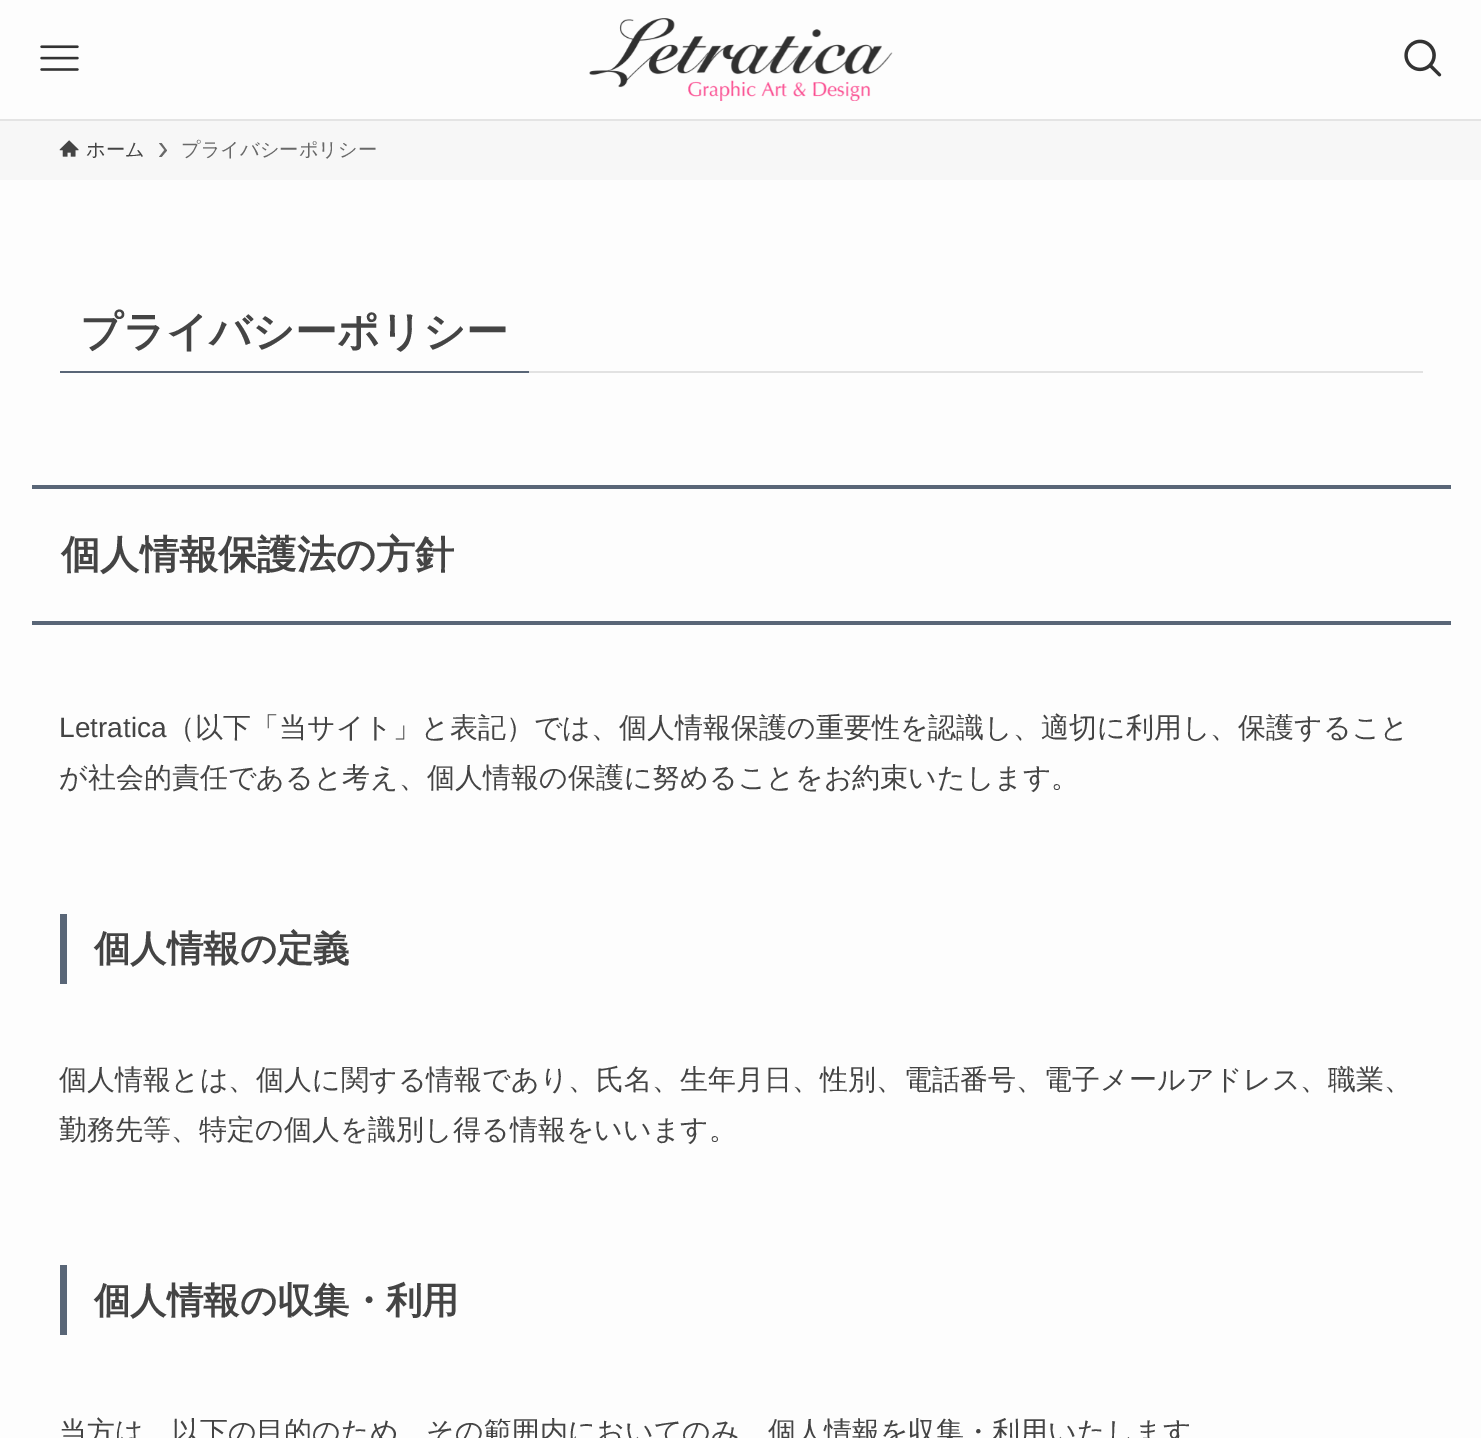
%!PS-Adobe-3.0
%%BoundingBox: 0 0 1481 1438
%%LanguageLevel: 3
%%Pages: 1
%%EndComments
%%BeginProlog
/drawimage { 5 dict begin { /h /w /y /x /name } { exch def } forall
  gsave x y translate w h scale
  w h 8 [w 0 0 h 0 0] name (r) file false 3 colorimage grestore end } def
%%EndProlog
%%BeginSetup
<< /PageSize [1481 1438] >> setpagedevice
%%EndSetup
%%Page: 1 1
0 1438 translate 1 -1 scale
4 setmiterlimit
0.992 setgray
0 0 1481 1438 rectfill
0.894 setgray
0 119 1481 2 rectfill
(images/1.raw) 40 45 39 26 drawimage
(images/2.raw) 589 18 304 83 drawimage
(images/3.raw) 1404 39 38 38 drawimage
0.969 setgray
0 121 1481 59 rectfill
(images/4.raw) 59 140 20 17 drawimage
0.408 setgray
newpath 161.5 143 moveto 159 143 lineto 164.5 150 lineto 159 157 lineto 161.5 157 lineto 167 150.5 lineto closepath fill
0.886 setgray
529 371 894 2 rectfill
0.349 0.4 0.467 setrgbcolor
60 371 469 2 rectfill
32 485 1419 4 rectfill
32 621 1419 4 rectfill
60 914 7 70 rectfill
60 1265 7 70 rectfill
/WenQuanYiZenHei-Medium [19.25 0 0 -19.25 0 0] selectfont
0.267 setgray
86 156 moveto (ホーム) show
0.408 setgray
181 156 moveto (プライバシーポリシー) show
/WenQuanYiZenHei-Bold [42 0 0 -42 0 0] selectfont
0.267 setgray
80 346 moveto (プライバシーポリシー) show
/WenQuanYiZenHei-Bold [39.25 0 0 -39.25 0 0] selectfont
61 568 moveto (個人情報保護法の方針) show
/LiberationSans-Regular [28 0 0 -28 0 0] selectfont
59 737 moveto (Letratica) show
/WenQuanYiZenHei-Medium [28 0 0 -28 0 0] selectfont
167 737 moveto (（以下「当サイト」と表記）では、個人情報保護の重要性を認識し、適切に利用し、保護すること) show
59 787 moveto (が社会的責任であると考え、個人情報の保護に努めることをお約束いたします。) show
/WenQuanYiZenHei-Bold [36.4 0 0 -36.4 0 0] selectfont
94 961 moveto (個人情報の定義) show
/WenQuanYiZenHei-Medium [28 0 0 -28 0 0] selectfont
59 1089 moveto (個人情報とは、個人に関する情報であり、氏名、生年月日、性別、電話番号、電子メールアドレス、職業、) show
59 1139 moveto (勤務先等、特定の個人を識別し得る情報をいいます。) show
/WenQuanYiZenHei-Bold [36.4 0 0 -36.4 0 0] selectfont
94 1313 moveto (個人情報の収集・利用) show
/WenQuanYiZenHei-Medium [28 0 0 -28 0 0] selectfont
59 1441 moveto (当方は、以下の目的のため、その範囲内においてのみ、個人情報を収集・利用いたします) show
showpage
%%EOF
